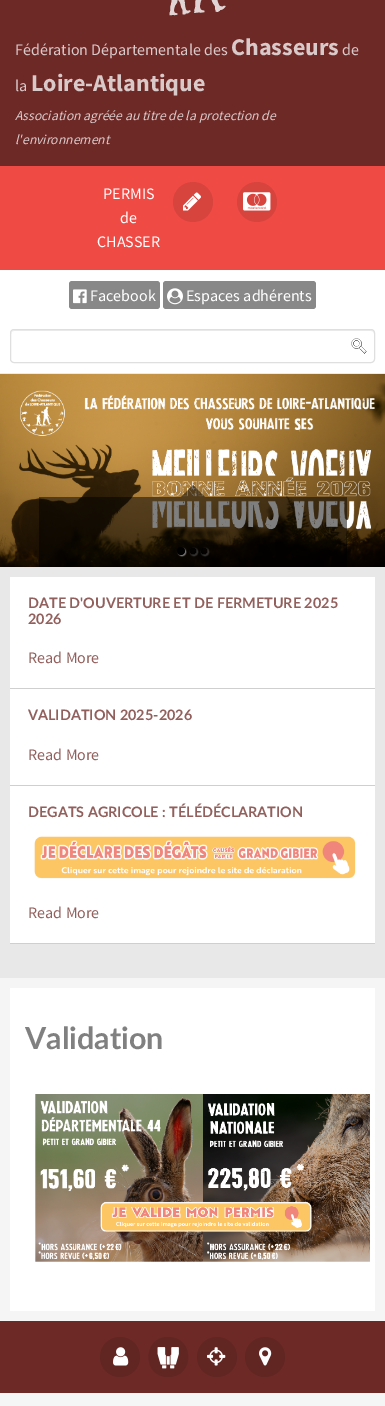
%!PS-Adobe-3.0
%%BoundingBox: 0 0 385 1406
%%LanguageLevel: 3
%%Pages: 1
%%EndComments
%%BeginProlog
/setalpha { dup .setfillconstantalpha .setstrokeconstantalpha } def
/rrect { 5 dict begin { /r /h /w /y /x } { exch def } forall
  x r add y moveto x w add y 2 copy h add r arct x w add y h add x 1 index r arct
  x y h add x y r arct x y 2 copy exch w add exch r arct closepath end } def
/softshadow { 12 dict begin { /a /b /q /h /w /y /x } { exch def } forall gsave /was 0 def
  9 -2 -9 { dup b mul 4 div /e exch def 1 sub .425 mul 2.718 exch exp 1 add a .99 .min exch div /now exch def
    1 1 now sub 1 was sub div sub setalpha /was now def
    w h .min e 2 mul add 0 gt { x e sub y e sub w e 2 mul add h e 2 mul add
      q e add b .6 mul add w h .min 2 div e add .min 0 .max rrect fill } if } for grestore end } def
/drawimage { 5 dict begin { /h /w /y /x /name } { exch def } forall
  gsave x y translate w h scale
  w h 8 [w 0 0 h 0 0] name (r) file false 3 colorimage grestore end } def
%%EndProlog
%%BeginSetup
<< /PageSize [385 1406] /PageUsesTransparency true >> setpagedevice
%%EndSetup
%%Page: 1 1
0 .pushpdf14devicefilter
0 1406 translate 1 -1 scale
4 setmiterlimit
1 setgray
0 0 385 1406 rectfill
0.424 0.161 0.149 setrgbcolor
0 0 385 166 rectfill
(images/1.raw) 169 0 57 16 drawimage
0.937 0.29 0.267 setrgbcolor
0 166 385 104 rectfill
0.843 0.263 0.239 setrgbcolor
newpath 193 202 20 0 360 arc closepath fill
(images/2.raw) 183 192 18 19 drawimage
newpath 257 202 20 0 360 arc closepath fill
(images/3.raw) 243 192 28 19 drawimage
0.922 setgray
0 373 385 1 rectfill
0.533 setgray
69 281 91 28 3 rrect fill
(images/4.raw) 73 289 14 15 drawimage
163 281 153 28 3 rrect fill
(images/5.raw) 167 288 16 17 drawimage
(images/6.raw) 351 338 16 16 drawimage
0.925 setgray
newpath 14 331 moveto 371 331 lineto 373 331 374 332 374 334 curveto 374 332 373 330 371 330 curveto 14 330 lineto 12 331 lineto 11 334 lineto 11 332 12 331 14 331 curveto closepath fill
0.875 setgray
10.5 329.5 364 33 3.5 rrect stroke
0.91 setgray
0 567 385 411 rectfill
(images/7.raw) 0 374 385 193 drawimage
0.5 setalpha
0 setgray
39 497 308 70 rectfill
newpath 205 497 moveto 181 497 lineto 193 485 lineto closepath fill
1 setalpha
1 setgray
178 548 8 8 4 0.5 0.5 softshadow
0 setgray
newpath 181 551 4 0 360 arc closepath fill
gsave
newpath 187 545 moveto 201 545 lineto 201 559 lineto 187 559 lineto closepath 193 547 moveto 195 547 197 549 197 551 curveto 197 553 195 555 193 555 curveto 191 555 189 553 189 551 curveto 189 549 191 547 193 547 curveto closepath eoclip newpath
1 setgray
190 548 8 8 4 0.5 0.2 softshadow
grestore
0.4 setalpha
newpath 193 551 4 0 360 arc closepath fill
gsave
newpath 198 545 moveto 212 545 lineto 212 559 lineto 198 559 lineto closepath 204 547 moveto 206 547 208 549 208 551 curveto 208 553 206 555 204 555 curveto 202 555 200 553 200 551 curveto 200 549 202 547 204 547 curveto closepath eoclip newpath
1 setalpha
1 setgray
201 548 8 8 4 0.5 0.2 softshadow
grestore
newpath 204 551 4 0 360 arc closepath fill
1 setalpha
1 setgray
10 577 365 111 rectfill
0.812 setgray
10 688 365 1 rectfill
1 setgray
10 689 365 96 rectfill
0.812 setgray
10 785 365 1 rectfill
1 setgray
10 786 365 157 rectfill
0.812 setgray
10 943 365 1 rectfill
(images/8.raw) 34 836 322 43 drawimage
0.961 setgray
0 978 385 343 rectfill
1 setgray
10 988 365 323 rectfill
(images/9.raw) 35 1094 335 168 drawimage
0.424 0.161 0.149 setrgbcolor
0 1321 385 72 rectfill
0.38 0.145 0.133 setrgbcolor
newpath 120 1357 20 0 360 arc closepath fill
(images/10.raw) 113 1347 16 19 drawimage
newpath 168 1377 moveto 142 1377 142 1337 168 1337 curveto 195 1337 195 1377 168 1377 curveto closepath fill
(images/11.raw) 157 1347 22 22 drawimage
newpath 217 1357 20 0 360 arc closepath fill
(images/12.raw) 207 1347 19 19 drawimage
newpath 265 1357 20 0 360 arc closepath fill
(images/13.raw) 259 1347 13 19 drawimage
0.961 setgray
0 1393 385 13 rectfill
/SourceSansPro-Regular [16 0 0 -16 0 0] selectfont
0.855 0.788 0.788 setrgbcolor
15 55 moveto (Fédération Départementale des) show
/SourceSansPro-Bold [24 0 0 -24 0 0] selectfont
231 55 moveto (Chasseurs) show
/SourceSansPro-Regular [16 0 0 -16 0 0] selectfont
342 55 moveto (de) show
15 91 moveto (la) show
/SourceSansPro-Bold [24 0 0 -24 0 0] selectfont
31 91 moveto (Loire-Atlantique) show
/SourceSansPro-Italic [13.6 0 0 -13.6 0 0] selectfont
15 120 moveto (Association agréée au titre de la protection de) show
15 144 moveto (l'environnement) show
/SourceSansPro-Regular [16 0 0 -16 0 0] selectfont
1 setgray
103 199 moveto (PERMIS) show
120 223 moveto (de) show
97 247 moveto (CHASSER) show
90 301 moveto (Facebook) show
186 301 moveto (Espaces adhérents) show
/Lato-Bold [14.4 0 0 -14.4 0 0] selectfont
0.569 0.373 0.361 setrgbcolor
28 608 moveto (DATE D'OUVERTURE ET DE FERMETURE 2025) show
28 624 moveto (2026) show
/SourceSansPro-Regular [16 0 0 -16 0 0] selectfont
28 663 moveto (Read More) show
/Lato-Bold [14.4 0 0 -14.4 0 0] selectfont
28 720 moveto (VALIDATION 2025-2026) show
/SourceSansPro-Regular [16 0 0 -16 0 0] selectfont
28 760 moveto (Read More) show
/Lato-Bold [14.4 0 0 -14.4 0 0] selectfont
28 817 moveto (DEGATS AGRICOLE : TÉLÉDÉCLARATION) show
/SourceSansPro-Regular [16 0 0 -16 0 0] selectfont
28 918 moveto (Read More) show
/Lato-Bold [30.5 0 0 -30.5 0 0] selectfont
0.502 setgray
25 1049 moveto (Validation) show
.poppdf14devicefilter showpage
%%EOF
